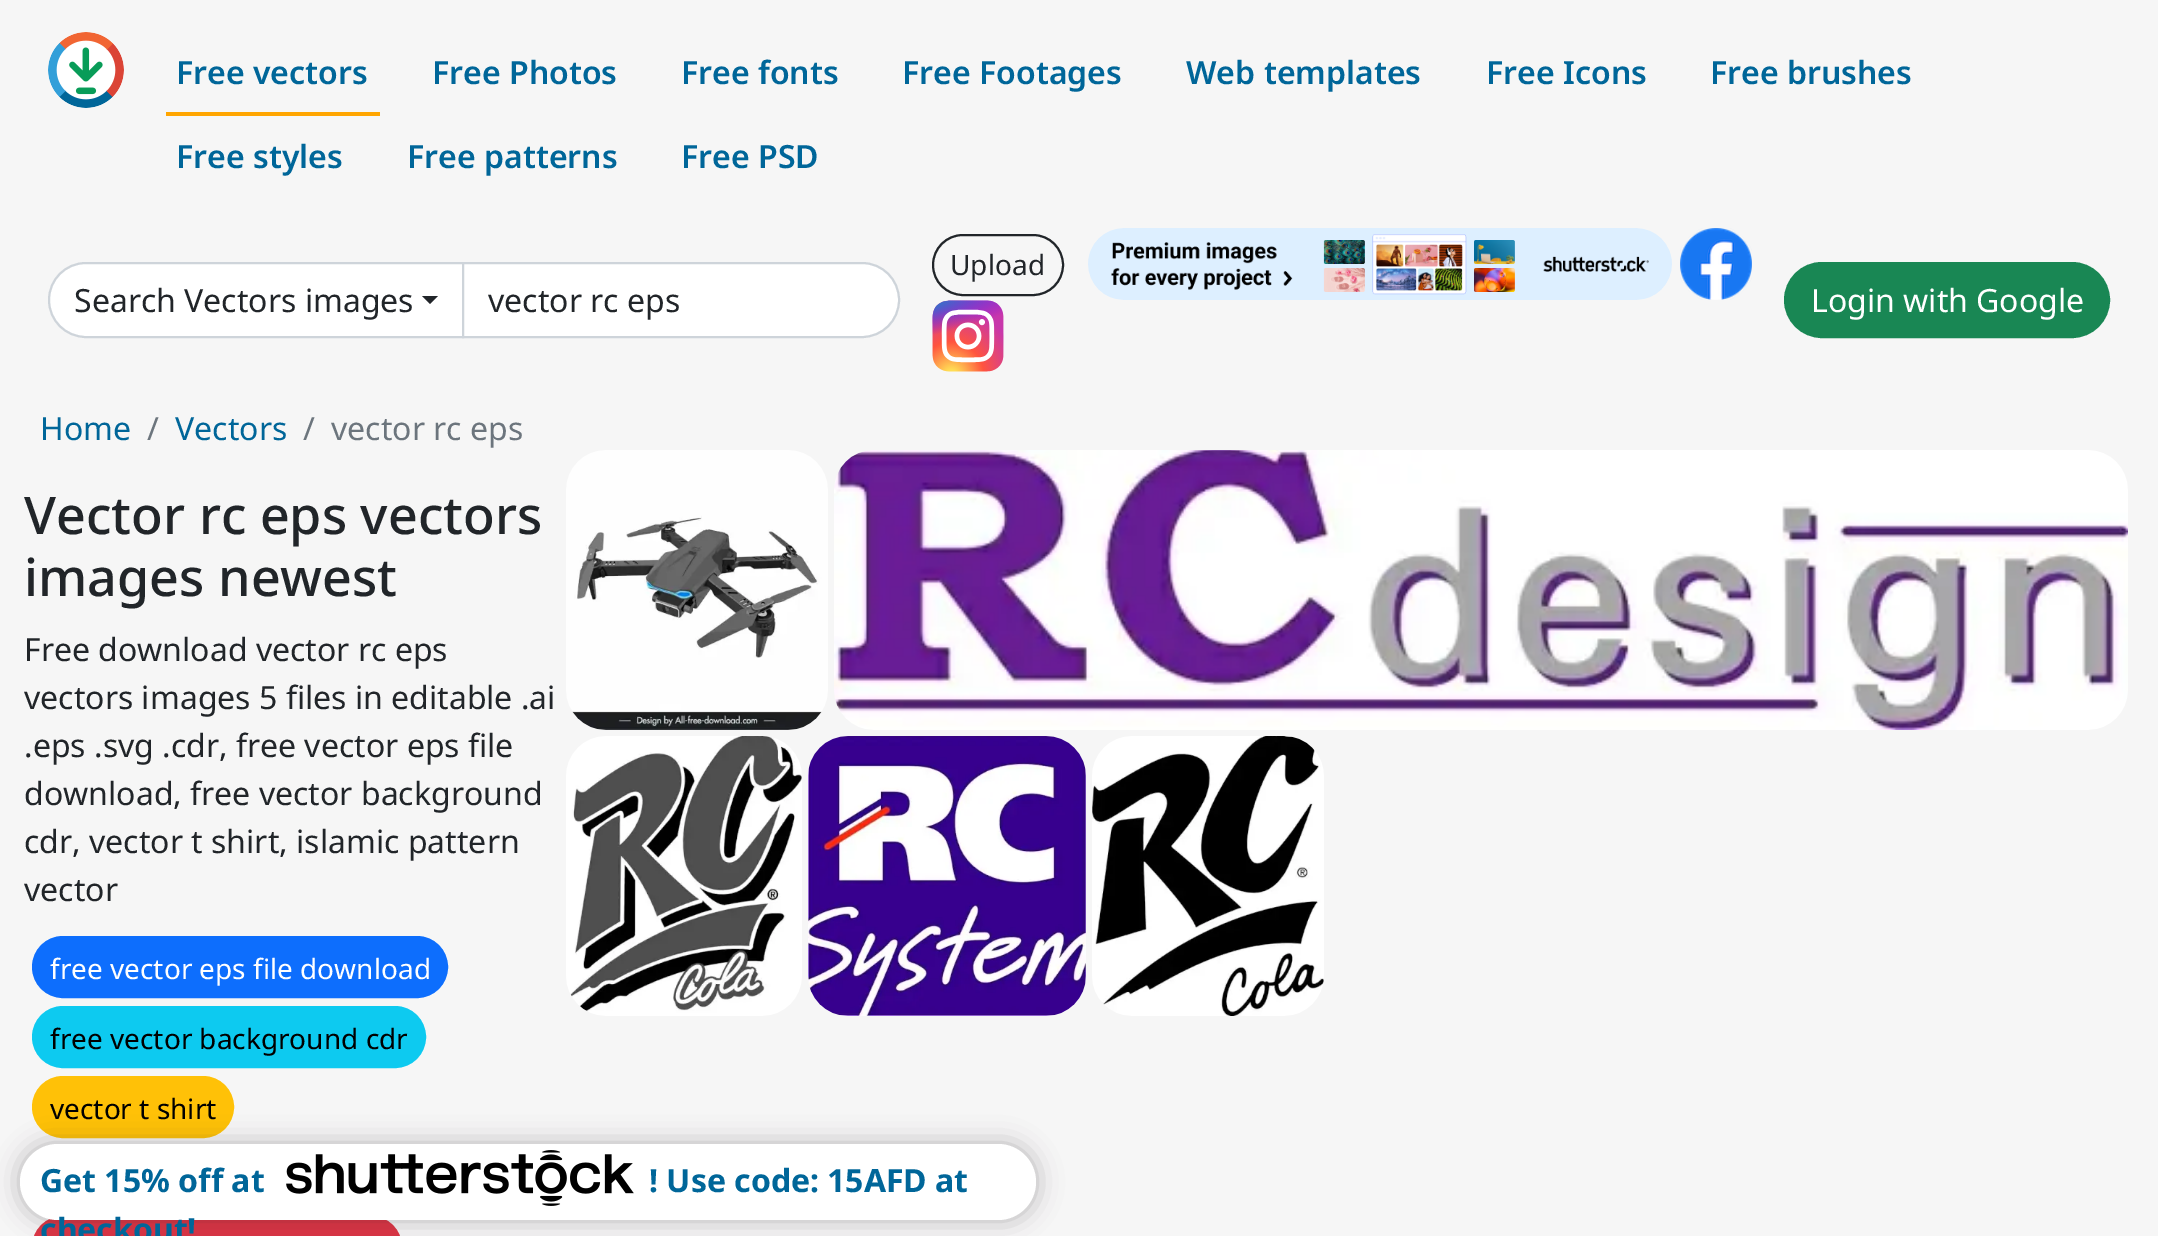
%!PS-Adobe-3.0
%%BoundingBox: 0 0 2158 1236
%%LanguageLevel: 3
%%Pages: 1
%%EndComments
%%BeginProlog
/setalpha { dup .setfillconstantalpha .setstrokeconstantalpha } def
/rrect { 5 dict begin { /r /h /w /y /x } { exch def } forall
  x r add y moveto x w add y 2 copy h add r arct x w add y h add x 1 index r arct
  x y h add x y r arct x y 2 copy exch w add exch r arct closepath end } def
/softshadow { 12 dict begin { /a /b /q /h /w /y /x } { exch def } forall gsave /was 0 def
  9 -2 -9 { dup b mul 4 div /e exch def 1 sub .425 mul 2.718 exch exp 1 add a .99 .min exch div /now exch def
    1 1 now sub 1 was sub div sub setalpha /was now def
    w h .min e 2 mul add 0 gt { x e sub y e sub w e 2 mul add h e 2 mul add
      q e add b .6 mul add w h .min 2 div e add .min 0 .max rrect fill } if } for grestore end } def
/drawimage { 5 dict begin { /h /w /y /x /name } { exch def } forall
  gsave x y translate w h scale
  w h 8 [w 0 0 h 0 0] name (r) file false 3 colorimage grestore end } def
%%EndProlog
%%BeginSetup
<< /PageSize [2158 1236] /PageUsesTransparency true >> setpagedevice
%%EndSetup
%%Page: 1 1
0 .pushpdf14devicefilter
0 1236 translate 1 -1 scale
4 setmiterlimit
0.965 setgray
0 0 2158 1236 rectfill
(images/1.raw) 48 32 76 76 drawimage
1 0.647 0 setrgbcolor
166 112 214 4 rectfill
0.129 0.145 0.161 setrgbcolor
2 setlinewidth
933 235 130 60 30 rrect stroke
(images/2.raw) 1088 228 584 72 drawimage
(images/3.raw) 1680 228 72 72 drawimage
(images/4.raw) 932 300 72 72 drawimage
1 setgray
newpath 86 263 moveto 463 263 lineto 463 337 lineto 86 337 lineto 65.5 337 49 320.5 49 300 curveto 49 279.5 65.5 263 86 263 curveto closepath gsave fill grestore
0.808 0.831 0.855 setrgbcolor
stroke
0.129 0.145 0.161 setrgbcolor
newpath 422 296 moveto 438 296 lineto 430 304 lineto closepath fill
1 setgray
newpath 463 263 moveto 862 263 lineto 882.5 263 899 279.5 899 300 curveto 899 320.5 882.5 337 862 337 curveto 463 337 lineto closepath gsave fill grestore
0.808 0.831 0.855 setrgbcolor
stroke
0.098 0.529 0.329 setrgbcolor
1785 263 324 74 37 rrect gsave fill grestore
stroke
0.051 0.431 0.992 setrgbcolor
33 937 414 60 30 rrect gsave fill grestore
stroke
0.051 0.792 0.941 setrgbcolor
33 1007 392 60 30 rrect gsave fill grestore
stroke
1 0.757 0.027 setrgbcolor
33 1077 200 60 30 rrect gsave fill grestore
stroke
0.863 0.208 0.271 setrgbcolor
33 1217 368 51 30 rrect gsave fill grestore
stroke
(images/5.raw) 566 450 262 280 drawimage
(images/6.raw) 834 450 1294 280 drawimage
(images/7.raw) 566 736 236 280 drawimage
(images/8.raw) 808 736 278 280 drawimage
(images/9.raw) 1092 736 232 280 drawimage
0.137 0.122 0.125 setrgbcolor
20 1144 1016 76 38 13 0.3 softshadow
1 setgray
20 1144 1016 76 38 rrect fill
(images/10.raw) 286 1150 348 56 drawimage
/NotoSans-SemiBold [32 0 0 -32 0 0] selectfont
0 0.4 0.6 setrgbcolor
176 84 moveto (Free vectors) show
432 84 moveto (Free Photos) show
681 84 moveto (Free fonts) show
902 84 moveto (Free Footages) show
1186 84 moveto (Web templates) show
1486 84 moveto (Free Icons) show
1710 84 moveto (Free brushes) show
176 168 moveto (Free styles) show
407 168 moveto (Free patterns) show
681 168 moveto (Free PSD) show
/NotoSans-Regular [28 0 0 -28 0 0] selectfont
0.129 0.145 0.161 setrgbcolor
950 275 moveto (Upload) show
/NotoSans-Regular [32 0 0 -32 0 0] selectfont
74 312 moveto (Search Vectors images) show
488 312 moveto (vector rc eps) show
1 setgray
1811 312 moveto (Login with Google) show
0 0.4 0.6 setrgbcolor
40 440 moveto (Home) show
0.424 0.459 0.49 setrgbcolor
147 440 moveto (/) show
0 0.4 0.6 setrgbcolor
175 440 moveto (Vectors) show
0.424 0.459 0.49 setrgbcolor
303 440 moveto (/) show
331 440 moveto (vector rc eps) show
/NotoSans-Medium [52 0 0 -52 0 0] selectfont
0.129 0.145 0.161 setrgbcolor
24 534 moveto (Vector rc eps vectors) show
24 596 moveto (images newest) show
/NotoSans-Regular [32 0 0 -32 0 0] selectfont
24 661 moveto (Free download vector rc eps) show
24 709 moveto (vectors images 5 files in editable .ai) show
24 757 moveto (.eps .svg .cdr, free vector eps file) show
24 805 moveto (download, free vector background) show
24 853 moveto (cdr, vector t shirt, islamic pattern) show
24 901 moveto (vector) show
/NotoSans-Regular [28 0 0 -28 0 0] selectfont
1 setgray
50 979 moveto (free vector eps file download) show
0 setgray
50 1049 moveto (free vector background cdr) show
50 1119 moveto (vector t shirt) show
/NotoSans-Bold [32 0 0 -32 0 0] selectfont
0 0.4 0.6 setrgbcolor
40 1192 moveto (Get 15% off at) show
649 1192 moveto (! Use code: 15AFD at) show
40 1241 moveto (checkout!) show
.poppdf14devicefilter showpage
%%EOF
